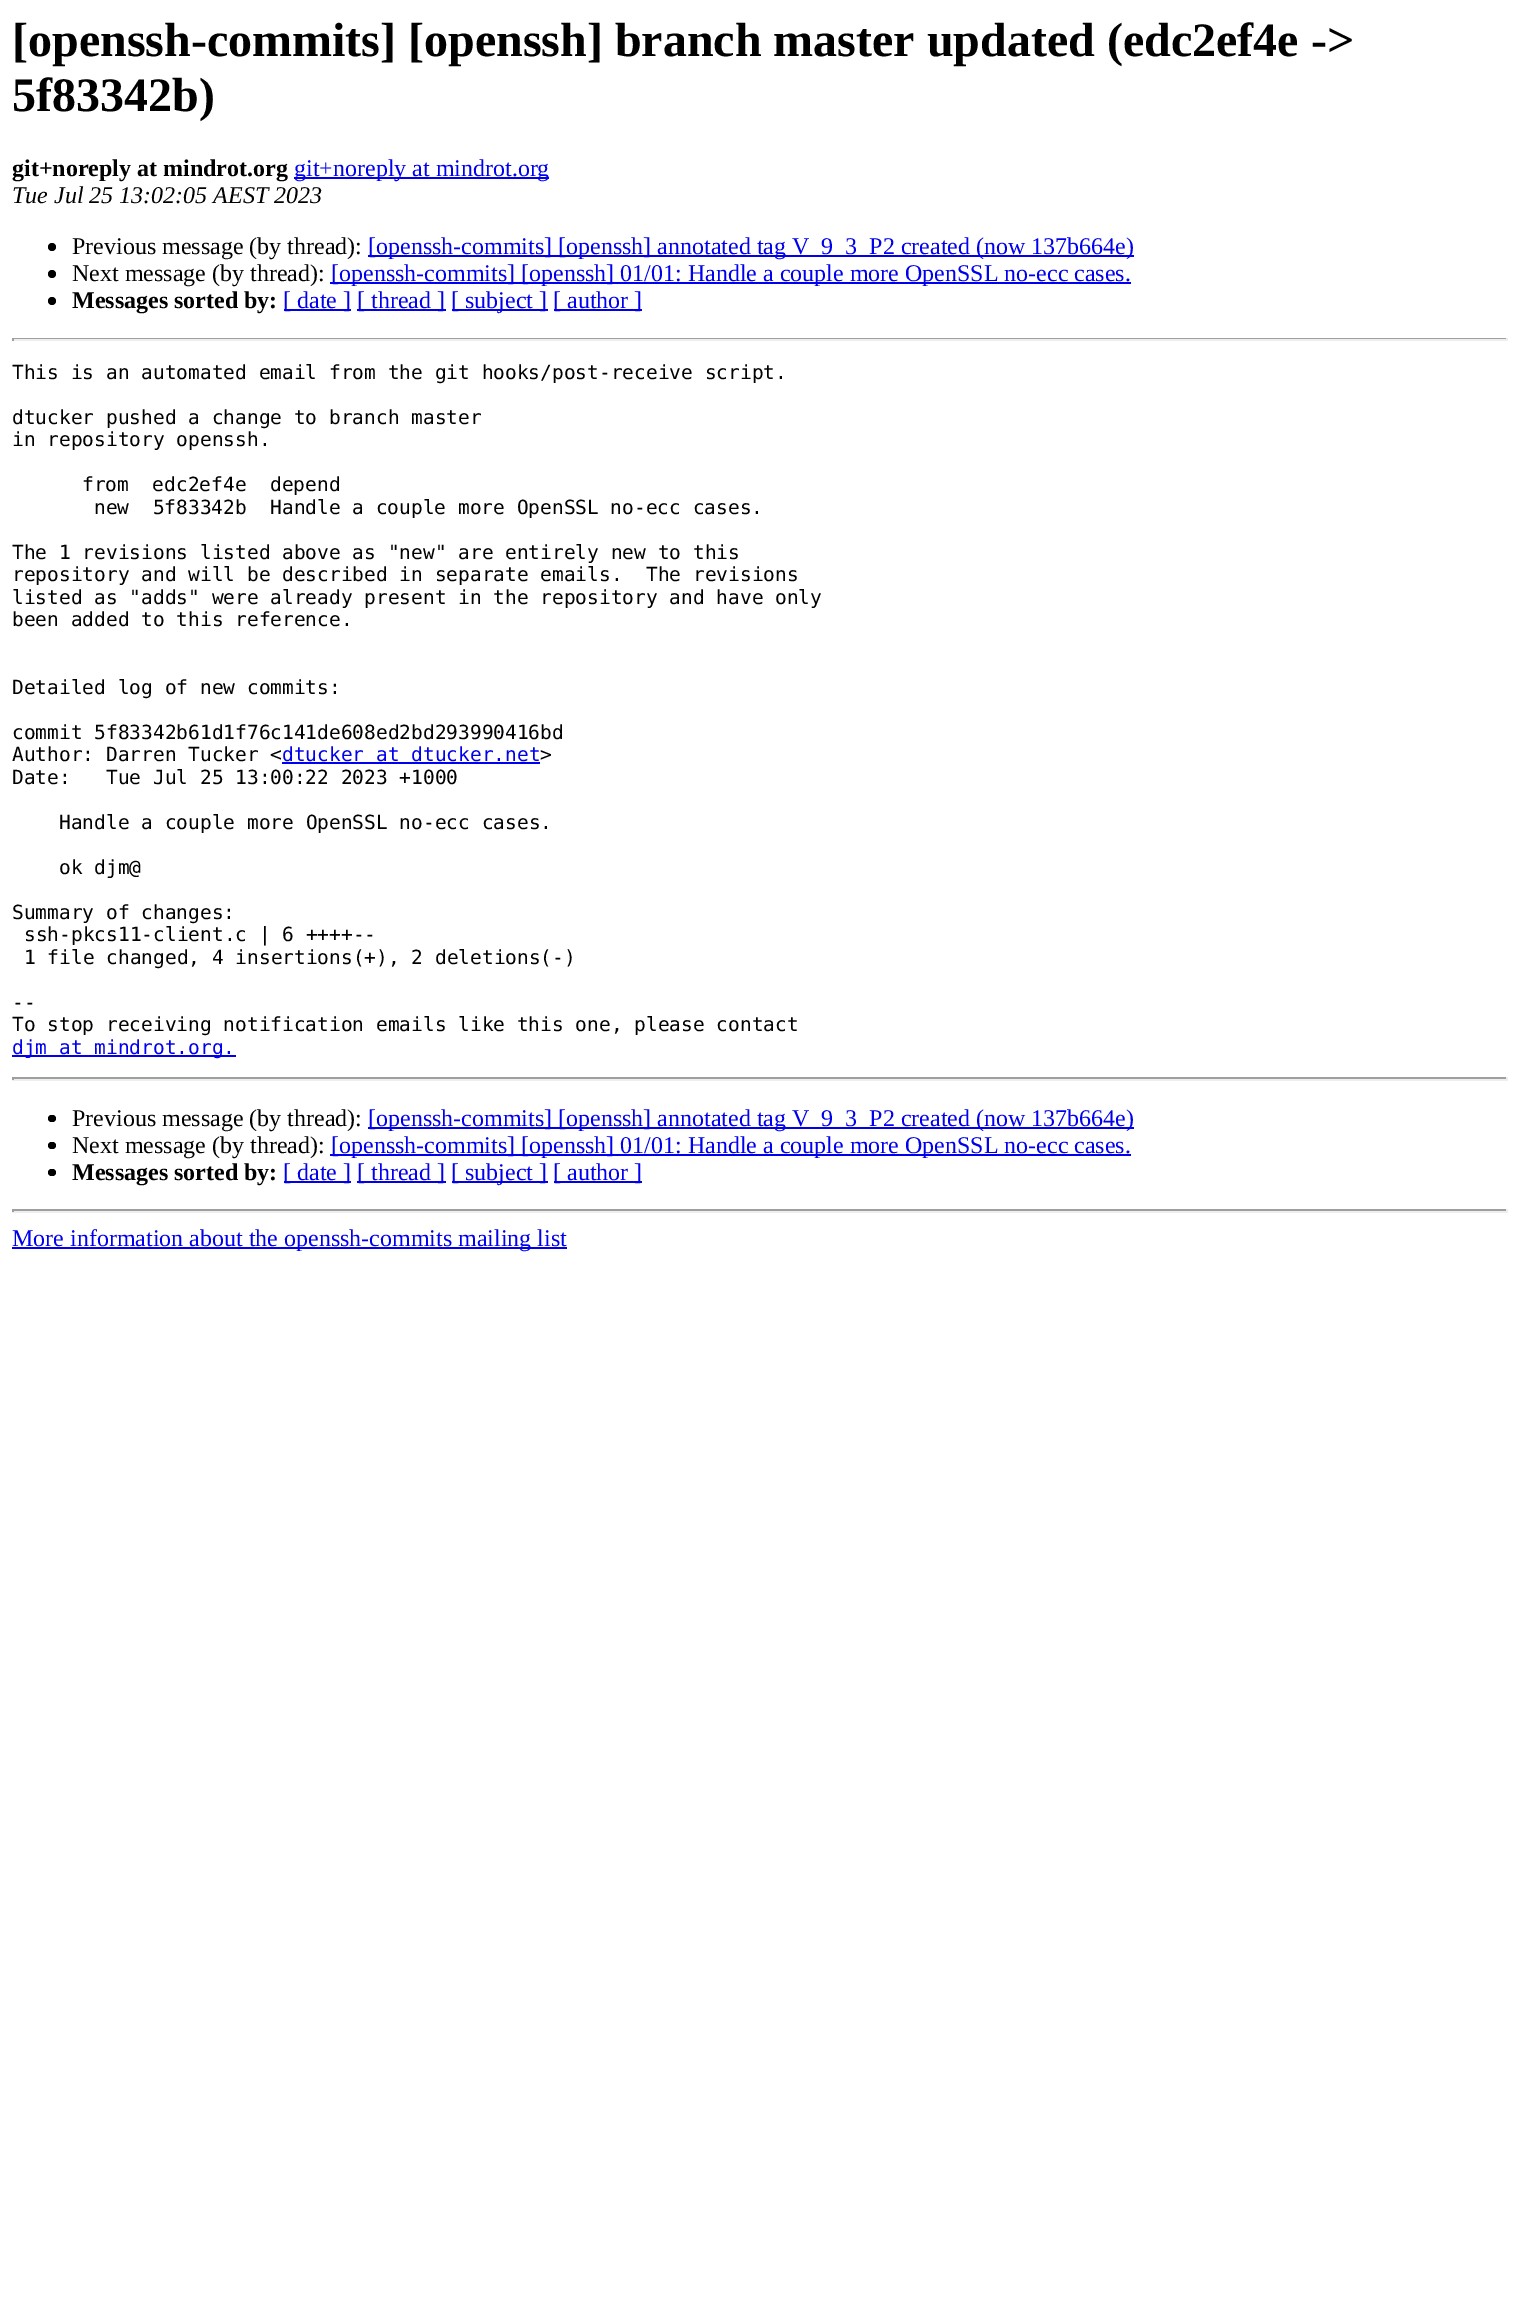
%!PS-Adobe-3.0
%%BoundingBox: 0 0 1519 2320
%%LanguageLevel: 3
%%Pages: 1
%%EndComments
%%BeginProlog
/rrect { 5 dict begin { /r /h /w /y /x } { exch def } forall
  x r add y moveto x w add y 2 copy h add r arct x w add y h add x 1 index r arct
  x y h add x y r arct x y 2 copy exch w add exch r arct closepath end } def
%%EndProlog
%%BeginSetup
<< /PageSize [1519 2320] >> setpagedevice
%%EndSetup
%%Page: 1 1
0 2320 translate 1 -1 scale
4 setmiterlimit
1 setgray
0 0 1519 2320 rectfill
0 0 0.933 setrgbcolor
294 177 255 2 rectfill
0 setgray
newpath 52 247 4 0 360 arc closepath fill
0 0 0.933 setrgbcolor
368 255 766 2 rectfill
0 setgray
newpath 52 274 4 0 360 arc closepath fill
0 0 0.933 setrgbcolor
330 282 801 2 rectfill
0 setgray
newpath 52 301 4 0 360 arc closepath fill
0 0 0.933 setrgbcolor
284 309 67 2 rectfill
357 309 89 2 rectfill
452 309 96 2 rectfill
554 309 88 2 rectfill
0.624 setgray
12 338 1496 1 rectfill
0.933 setgray
1506 338 2 3 rectfill
12 339 1496 2 rectfill
0.624 setgray
12 338 2 3 rectfill
0 0 0.933 setrgbcolor
282 762 258 2 rectfill
12 1055 224 2 rectfill
0.624 setgray
12 1077 1496 2 rectfill
0.933 setgray
1506 1077 2 3 rectfill
12 1079 1496 2 rectfill
0.624 setgray
12 1077 2 3 rectfill
0 setgray
48 1115 8 7 3.5 rrect fill
0 0 0.933 setrgbcolor
368 1127 766 2 rectfill
0 setgray
48 1142 8 7 3.5 rrect fill
0 0 0.933 setrgbcolor
330 1154 801 2 rectfill
0 setgray
48 1169 8 7 3.5 rrect fill
0 0 0.933 setrgbcolor
284 1181 67 2 rectfill
357 1181 89 2 rectfill
452 1181 96 2 rectfill
554 1181 88 2 rectfill
0.624 setgray
12 1209 1496 2 rectfill
0.933 setgray
1506 1209 2 3 rectfill
12 1211 1496 2 rectfill
0.624 setgray
12 1209 2 3 rectfill
0 0 0.933 setrgbcolor
12 1247 555 2 rectfill
/LiberationSerif-Bold [48 0 0 -48 0 0] selectfont
0 setgray
12 56 moveto ([openssh-commits] [openssh] branch master updated \(edc2ef4e ->) show
12 111 moveto (5f83342b\)) show
/LiberationSerif-Bold [24 0 0 -24 0 0] selectfont
12 176 moveto (git+noreply at mindrot.org) show
/LiberationSerif-Regular [24 0 0 -24 0 0] selectfont
0 0 0.933 setrgbcolor
294 176 moveto (git+noreply at mindrot.org) show
/LiberationSerif-Italic [24 0 0 -24 0 0] selectfont
0 setgray
12 203 moveto (Tue Jul 25 13:02:05 AEST 2023) show
/LiberationSerif-Regular [24 0 0 -24 0 0] selectfont
72 254 moveto (Previous message \(by thread\):) show
0 0 0.933 setrgbcolor
368 254 moveto ([openssh-commits] [openssh] annotated tag V_9_3_P2 created \(now 137b664e\)) show
0 setgray
72 281 moveto (Next message \(by thread\):) show
0 0 0.933 setrgbcolor
331 281 moveto ([openssh-commits] [openssh] 01/01: Handle a couple more OpenSSL no-ecc cases.) show
/LiberationSerif-Bold [24 0 0 -24 0 0] selectfont
0 setgray
72 308 moveto (Messages sorted by:) show
/LiberationSerif-Regular [24 0 0 -24 0 0] selectfont
0 0 0.933 setrgbcolor
283 308 moveto ([ date ]) show
357 308 moveto ([ thread ]) show
451 308 moveto ([ subject ]) show
553 308 moveto ([ author ]) show
/DejaVuSansMono-Regular [19.5 0 0 -19.5 0 0] selectfont
0 setgray
12 379 moveto (This is an automated email from the git hooks/post-receive script.) show
12 424 moveto (dtucker pushed a change to branch master) show
12 446 moveto (in repository openssh.) show
82 491 moveto (from  edc2ef4e  depend) show
94 514 moveto (new  5f83342b  Handle a couple more OpenSSL no-ecc cases.) show
12 559 moveto (The 1 revisions listed above as "new" are entirely new to this) show
12 581 moveto (repository and will be described in separate emails.  The revisions) show
12 604 moveto (listed as "adds" were already present in the repository and have only) show
12 626 moveto (been added to this reference.) show
12 694 moveto (Detailed log of new commits:) show
12 739 moveto (commit 5f83342b61d1f76c141de608ed2bd293990416bd) show
12 761 moveto (Author: Darren Tucker <) show
0 0 0.933 setrgbcolor
282 761 moveto (dtucker at dtucker.net) show
0 setgray
540 761 moveto (>) show
12 784 moveto (Date:   Tue Jul 25 13:00:22 2023 +1000) show
59 829 moveto (Handle a couple more OpenSSL no-ecc cases.) show
59 874 moveto (ok djm@) show
12 919 moveto (Summary of changes:) show
24 941 moveto (ssh-pkcs11-client.c | 6 ++++--) show
24 964 moveto (1 file changed, 4 insertions\(+\), 2 deletions\(-\)) show
12 1009 moveto (--) show
12 1031 moveto (To stop receiving notification emails like this one, please contact) show
0 0 0.933 setrgbcolor
12 1054 moveto (djm at mindrot.org.) show
/LiberationSerif-Regular [24 0 0 -24 0 0] selectfont
0 setgray
72 1126 moveto (Previous message \(by thread\):) show
0 0 0.933 setrgbcolor
368 1126 moveto ([openssh-commits] [openssh] annotated tag V_9_3_P2 created \(now 137b664e\)) show
0 setgray
72 1153 moveto (Next message \(by thread\):) show
0 0 0.933 setrgbcolor
331 1153 moveto ([openssh-commits] [openssh] 01/01: Handle a couple more OpenSSL no-ecc cases.) show
/LiberationSerif-Bold [24 0 0 -24 0 0] selectfont
0 setgray
72 1180 moveto (Messages sorted by:) show
/LiberationSerif-Regular [24 0 0 -24 0 0] selectfont
0 0 0.933 setrgbcolor
283 1180 moveto ([ date ]) show
357 1180 moveto ([ thread ]) show
451 1180 moveto ([ subject ]) show
553 1180 moveto ([ author ]) show
12 1246 moveto (More information about the openssh-commits mailing list) show
showpage
%%EOF
